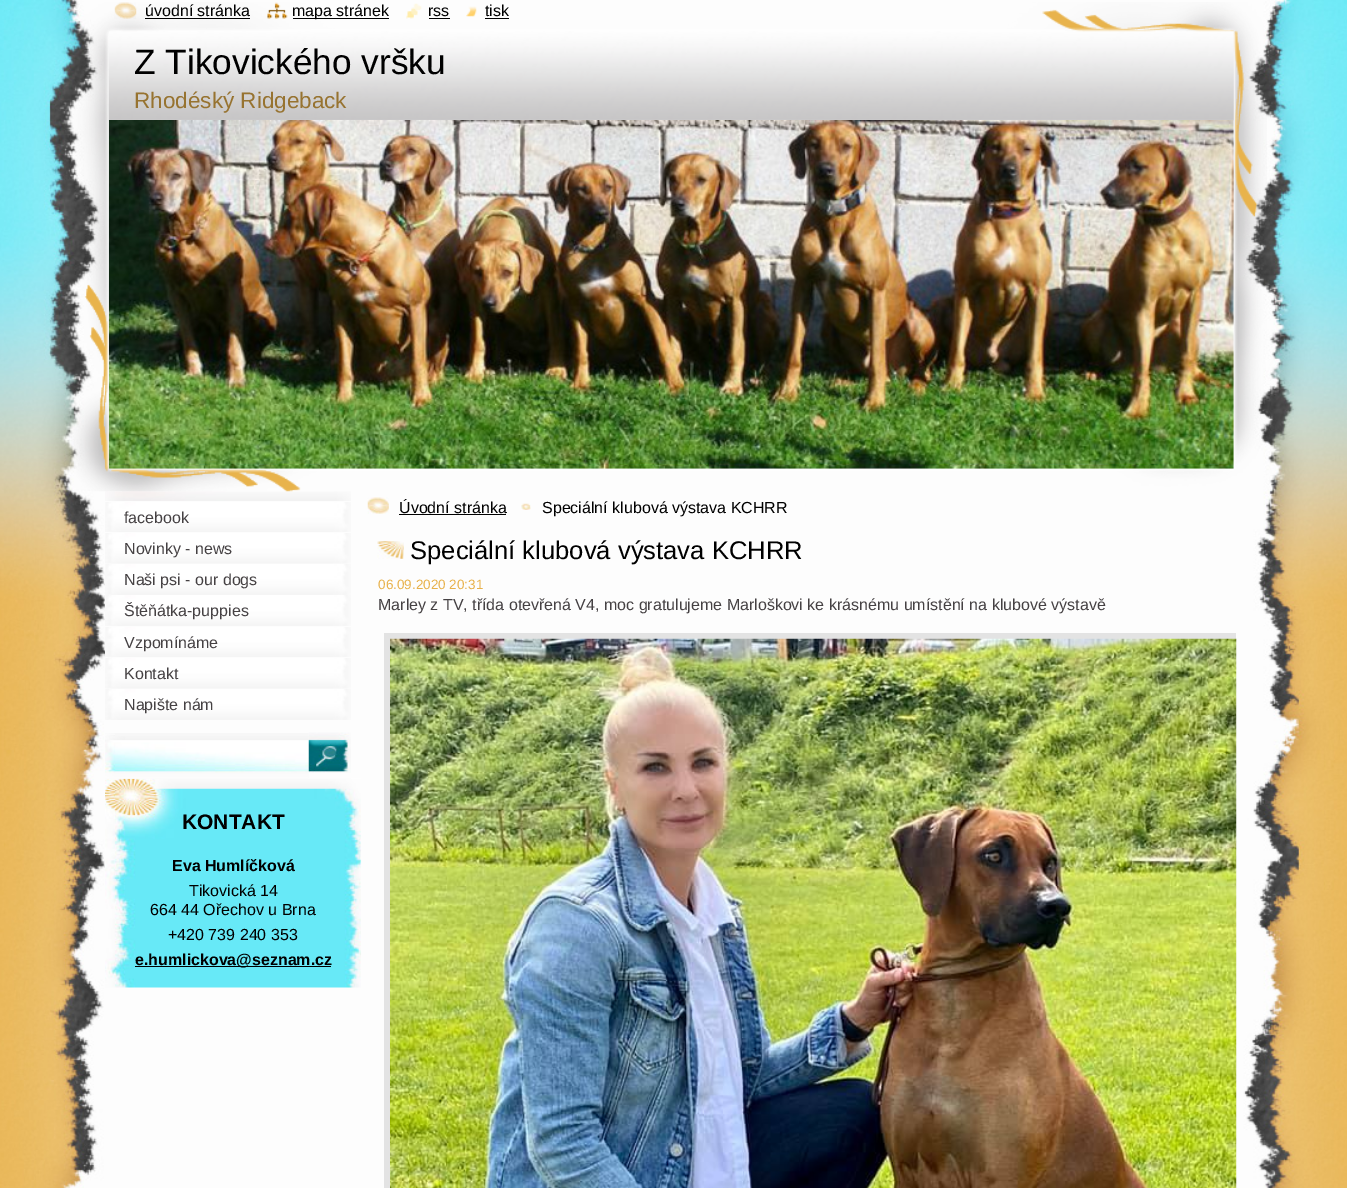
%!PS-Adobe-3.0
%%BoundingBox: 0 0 1347 1188
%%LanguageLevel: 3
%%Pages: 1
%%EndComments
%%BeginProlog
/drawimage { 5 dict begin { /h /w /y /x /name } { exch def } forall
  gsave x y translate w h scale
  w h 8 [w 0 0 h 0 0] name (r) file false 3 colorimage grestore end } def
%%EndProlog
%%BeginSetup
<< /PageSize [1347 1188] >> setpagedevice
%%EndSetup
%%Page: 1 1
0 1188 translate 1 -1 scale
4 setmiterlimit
1 setgray
0 0 1347 1188 rectfill
(images/1.raw) 0 0 1347 1188 drawimage
(images/8.raw) 105 491 246 10 drawimage
(images/6.raw) 71 2 1196 490 drawimage
(images/2.raw) 114 2 23 17 drawimage
0 setgray
145 18 105 1 rectfill
(images/3.raw) 267 2 21 17 drawimage
293 18 96 1 rectfill
(images/4.raw) 406 3 16 16 drawimage
429 18 21 1 rectfill
(images/5.raw) 466 6 11 11 drawimage
485 18 24 1 rectfill
(images/7.raw) 108 120 1126 349 drawimage
(images/9.raw) 105 502 246 30 drawimage
(images/10.raw) 105 533 246 31 drawimage
(images/11.raw) 105 564 246 31 drawimage
(images/12.raw) 105 595 246 31 drawimage
(images/9.raw) 105 627 246 30 drawimage
(images/10.raw) 105 658 246 31 drawimage
(images/13.raw) 105 689 246 31 drawimage
(images/16.raw) 105 778 257 210 drawimage
(images/14.raw) 105 733 204 46 drawimage
(images/15.raw) 308 732 43 41 drawimage
135 966 196 1 rectfill
(images/17.raw) 367 497 22 17 drawimage
399 514 107 1 rectfill
(images/18.raw) 521 503 10 7 drawimage
(images/19.raw) 377 541 27 18 drawimage
gsave
374 535 862 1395 rectclip
0.89 setgray
6 setlinewidth
387 636 881 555 rectstroke
grestore
(images/20.raw) 390 638 847 550 drawimage
/LiberationSans-Regular [16 0 0 -16 0 0] selectfont
145 16 moveto (úvodní stránka) show
292 16 moveto (mapa stránek) show
428 16 moveto (rss) show
485 16 moveto (tisk) show
/LiberationSans-Regular [35.25 0 0 -35.25 0 0] selectfont
134 74 moveto (Z Tikovického vršku) show
/LiberationSans-Regular [22.5 0 0 -22.5 0 0] selectfont
0.592 0.451 0.188 setrgbcolor
134 108 moveto (Rhodéský Ridgeback) show
/LiberationSans-Regular [16 0 0 -16 0 0] selectfont
0.271 0.255 0.263 setrgbcolor
124 523 moveto (facebook) show
124 554 moveto (Novinky - news) show
124 585 moveto (Naši psi - our dogs) show
124 616 moveto (Štěňátka-puppies) show
124 648 moveto (Vzpomínáme) show
124 679 moveto (Kontakt) show
124 710 moveto (Napište nám) show
/LiberationSans-Bold [21 0 0 -21 0 0] selectfont
0 setgray
182 829 moveto (KONTAKT) show
/LiberationSans-Bold [16 0 0 -16 0 0] selectfont
172 871 moveto (Eva Humlíčková) show
/LiberationSans-Regular [16 0 0 -16 0 0] selectfont
189 896 moveto (Tikovická 14) show
150 915 moveto (664 44 Ořechov u Brna) show
168 940 moveto (+420 739 240 353) show
/LiberationSans-Bold [16 0 0 -16 0 0] selectfont
135 965 moveto (e.humlickova@seznam.cz) show
/LiberationSans-Regular [16 0 0 -16 0 0] selectfont
399 513 moveto (Úvodní stránka) show
542 513 moveto (Speciální klubová výstava KCHRR) show
/LiberationSans-Regular [25.6 0 0 -25.6 0 0] selectfont
410 559 moveto (Speciální klubová výstava KCHRR) show
/LiberationSans-Regular [13.5 0 0 -13.5 0 0] selectfont
0.91 0.694 0.29 setrgbcolor
378 589 moveto (06.09.2020 20:31) show
/LiberationSans-Regular [16 0 0 -16 0 0] selectfont
0.271 0.255 0.263 setrgbcolor
378 610 moveto (Marley z TV, třída otevřená V4, moc gratulujeme Marloškovi ke krásnému umístění na klubové výstavě) show
showpage
%%EOF
